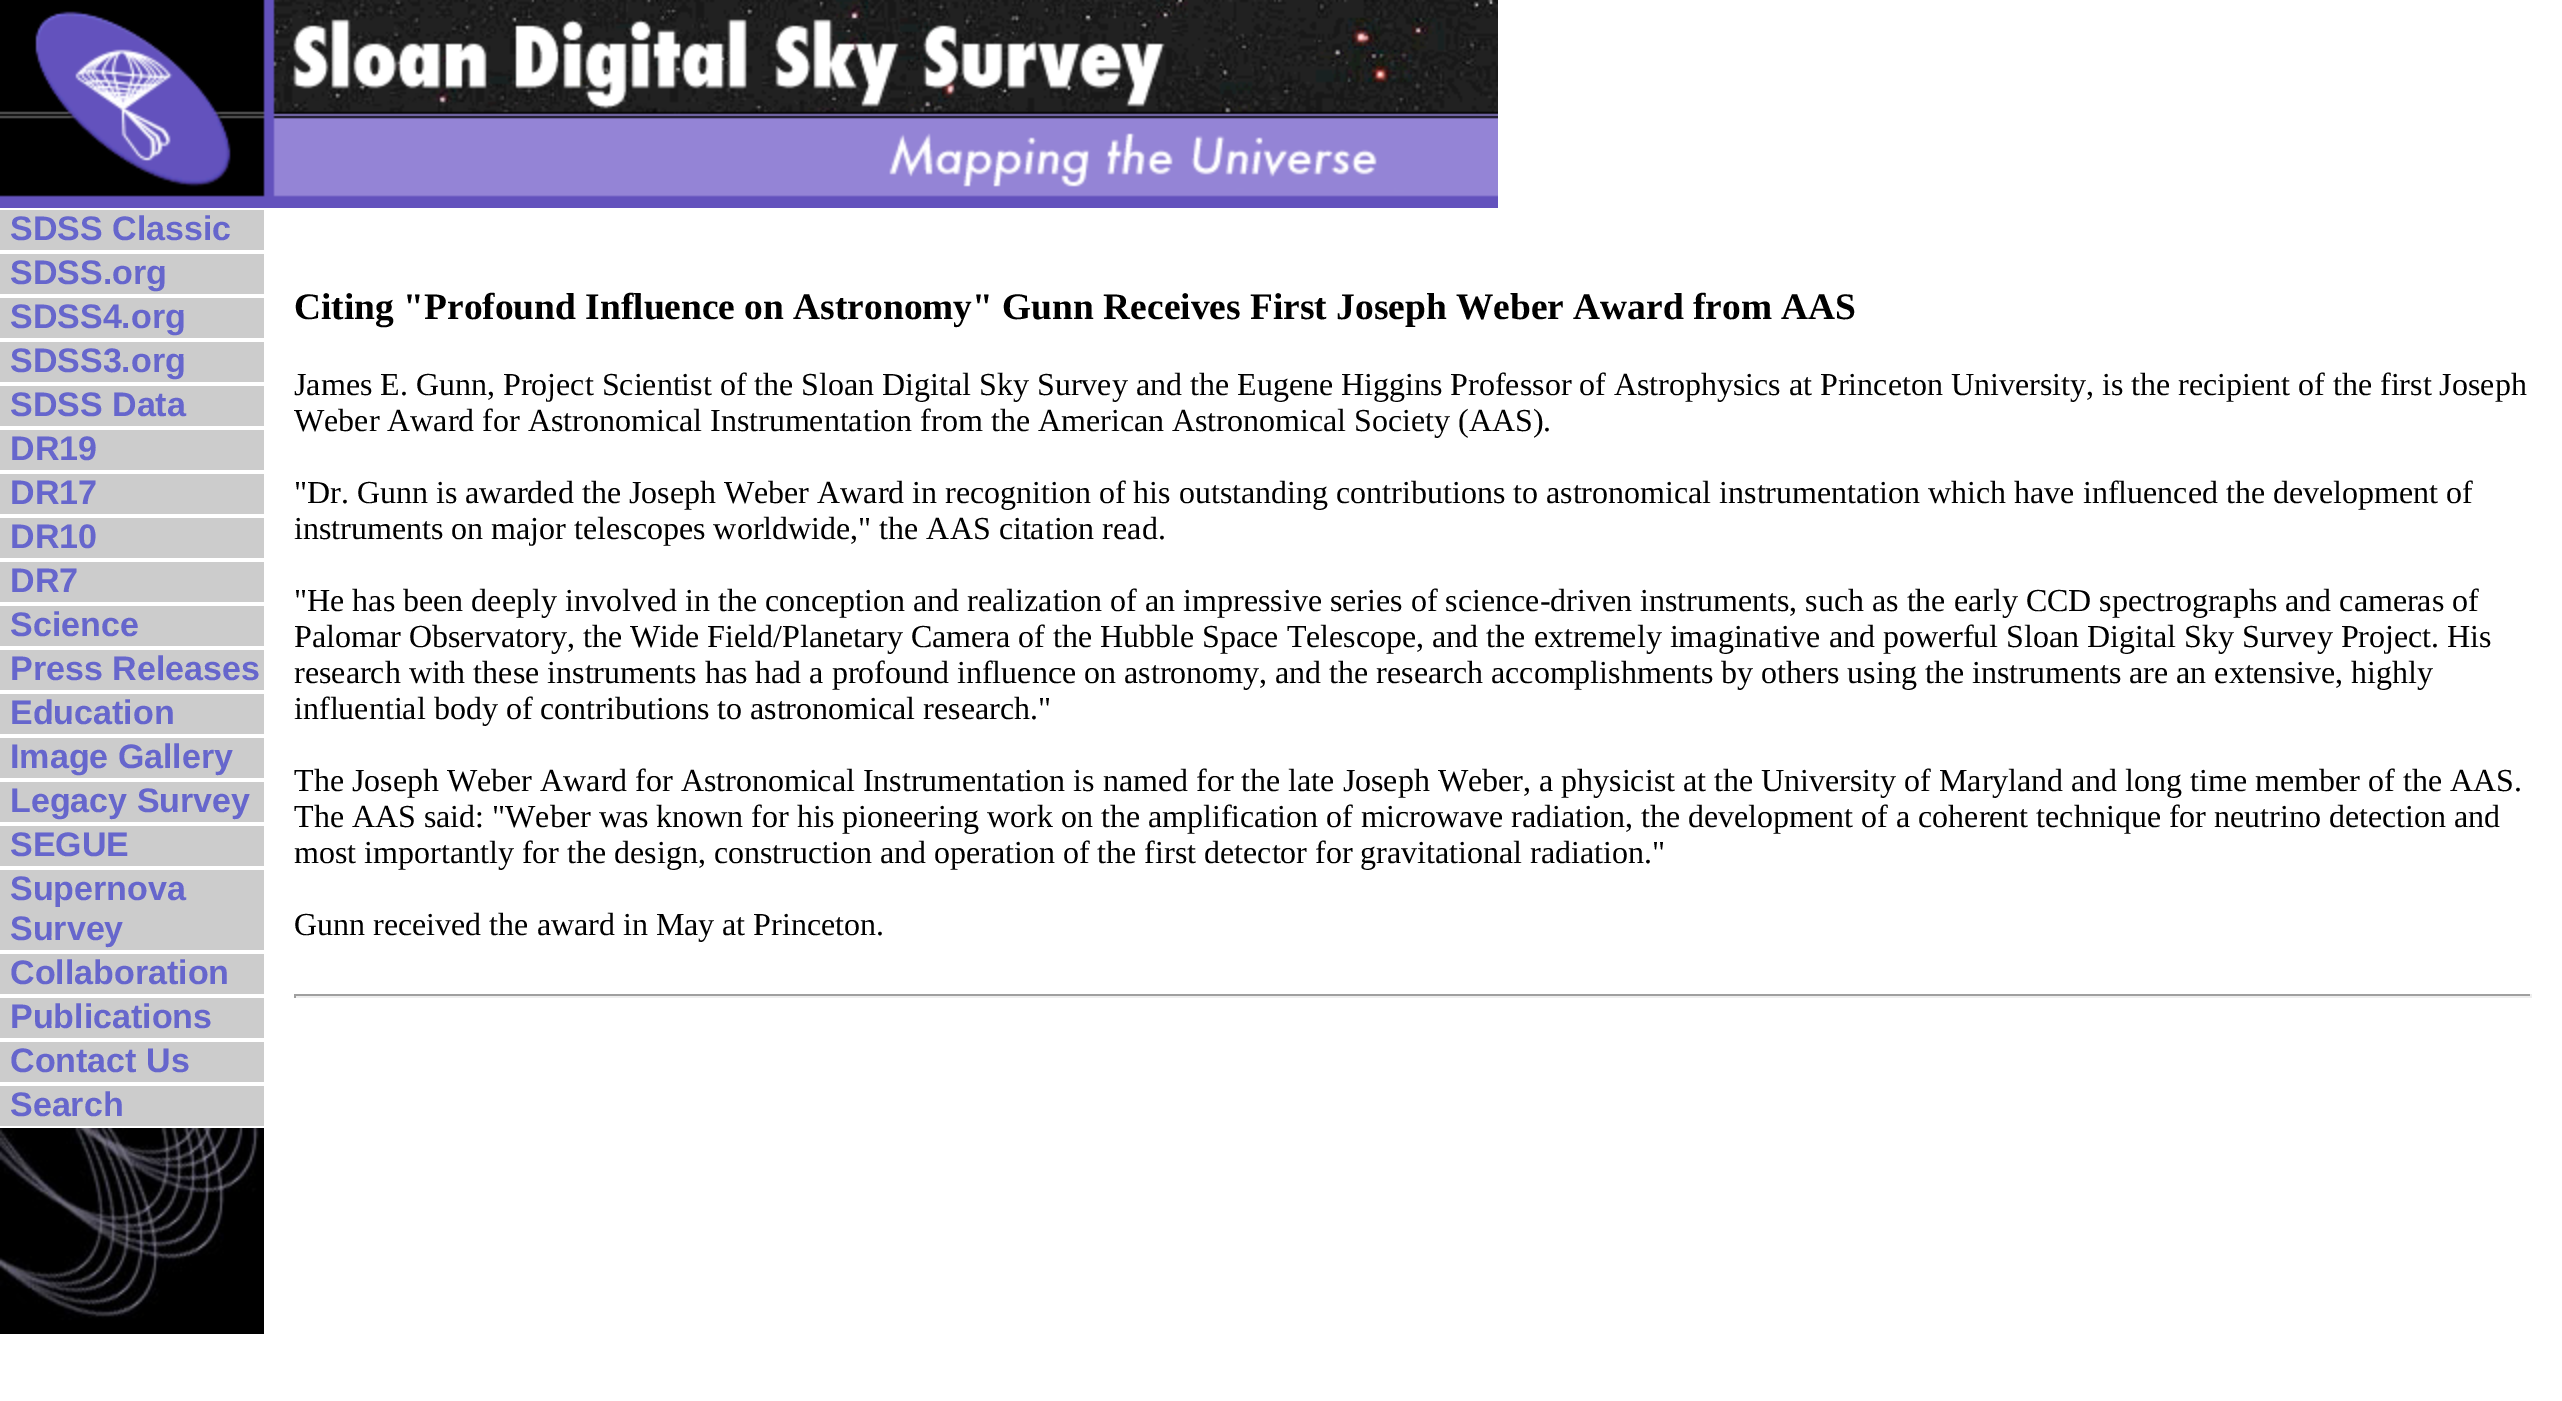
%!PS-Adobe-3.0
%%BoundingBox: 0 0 2562 1401
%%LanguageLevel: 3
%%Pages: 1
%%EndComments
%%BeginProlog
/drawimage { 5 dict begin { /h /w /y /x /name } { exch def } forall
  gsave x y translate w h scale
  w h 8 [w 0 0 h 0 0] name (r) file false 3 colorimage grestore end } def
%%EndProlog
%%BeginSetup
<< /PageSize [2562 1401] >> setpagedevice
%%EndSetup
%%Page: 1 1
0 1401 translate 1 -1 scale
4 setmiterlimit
1 setgray
0 0 2562 1401 rectfill
(images/1.raw) 0 0 1498 208 drawimage
0.8 setgray
0 210 264 40 rectfill
0 254 264 40 rectfill
0 298 264 40 rectfill
0 342 264 40 rectfill
0 386 264 40 rectfill
0 430 264 40 rectfill
0 474 264 40 rectfill
0 518 264 40 rectfill
0 562 264 40 rectfill
0 606 264 40 rectfill
0 650 264 40 rectfill
0 694 264 40 rectfill
0 738 264 40 rectfill
0 782 264 40 rectfill
0 826 264 40 rectfill
0 870 264 80 rectfill
0 954 264 40 rectfill
0 998 264 40 rectfill
0 1042 264 40 rectfill
0 1086 264 40 rectfill
(images/2.raw) 0 1128 264 206 drawimage
0.624 setgray
294 994 2238 2 rectfill
0.933 setgray
2530 994 2 4 rectfill
294 996 2238 2 rectfill
0.624 setgray
294 994 2 4 rectfill
/LiberationSans-Bold [34 0 0 -34 0 0] selectfont
0.4 0.4 0.8 setrgbcolor
10 240 moveto (SDSS Classic) show
10 284 moveto (SDSS.org) show
10 328 moveto (SDSS4.org) show
10 372 moveto (SDSS3.org) show
10 416 moveto (SDSS Data) show
10 460 moveto (DR19) show
10 504 moveto (DR17) show
10 548 moveto (DR10) show
10 592 moveto (DR7) show
10 636 moveto (Science) show
10 680 moveto (Press Releases) show
10 724 moveto (Education) show
10 768 moveto (Image Gallery) show
10 812 moveto (Legacy Survey) show
10 856 moveto (SEGUE) show
10 900 moveto (Supernova) show
10 940 moveto (Survey) show
10 984 moveto (Collaboration) show
10 1028 moveto (Publications) show
10 1072 moveto (Contact Us) show
10 1116 moveto (Search) show
/LiberationSerif-Bold [37.45 0 0 -37.45 0 0] selectfont
0 setgray
294 319 moveto (Citing "Profound Influence on Astronomy" Gunn Receives First Joseph Weber Award from AAS) show
/LiberationSerif-Regular [32 0 0 -32 0 0] selectfont
294 395 moveto (James E. Gunn, Project Scientist of the Sloan Digital Sky Survey and the Eugene Higgins Professor of Astrophysics at Princeton University, is the recipient of the first Joseph) show
294 431 moveto (Weber Award for Astronomical Instrumentation from the American Astronomical Society \(AAS\).) show
294 503 moveto ("Dr. Gunn is awarded the Joseph Weber Award in recognition of his outstanding contributions to astronomical instrumentation which have influenced the development of) show
294 539 moveto (instruments on major telescopes worldwide," the AAS citation read.) show
294 611 moveto ("He has been deeply involved in the conception and realization of an impressive series of science-driven instruments, such as the early CCD spectrographs and cameras of) show
294 647 moveto (Palomar Observatory, the Wide Field/Planetary Camera of the Hubble Space Telescope, and the extremely imaginative and powerful Sloan Digital Sky Survey Project. His) show
294 683 moveto (research with these instruments has had a profound influence on astronomy, and the research accomplishments by others using the instruments are an extensive, highly) show
294 719 moveto (influential body of contributions to astronomical research.") show
294 791 moveto (The Joseph Weber Award for Astronomical Instrumentation is named for the late Joseph Weber, a physicist at the University of Maryland and long time member of the AAS.) show
294 827 moveto (The AAS said: "Weber was known for his pioneering work on the amplification of microwave radiation, the development of a coherent technique for neutrino detection and) show
294 863 moveto (most importantly for the design, construction and operation of the first detector for gravitational radiation.") show
294 935 moveto (Gunn received the award in May at Princeton.) show
showpage
%%EOF
